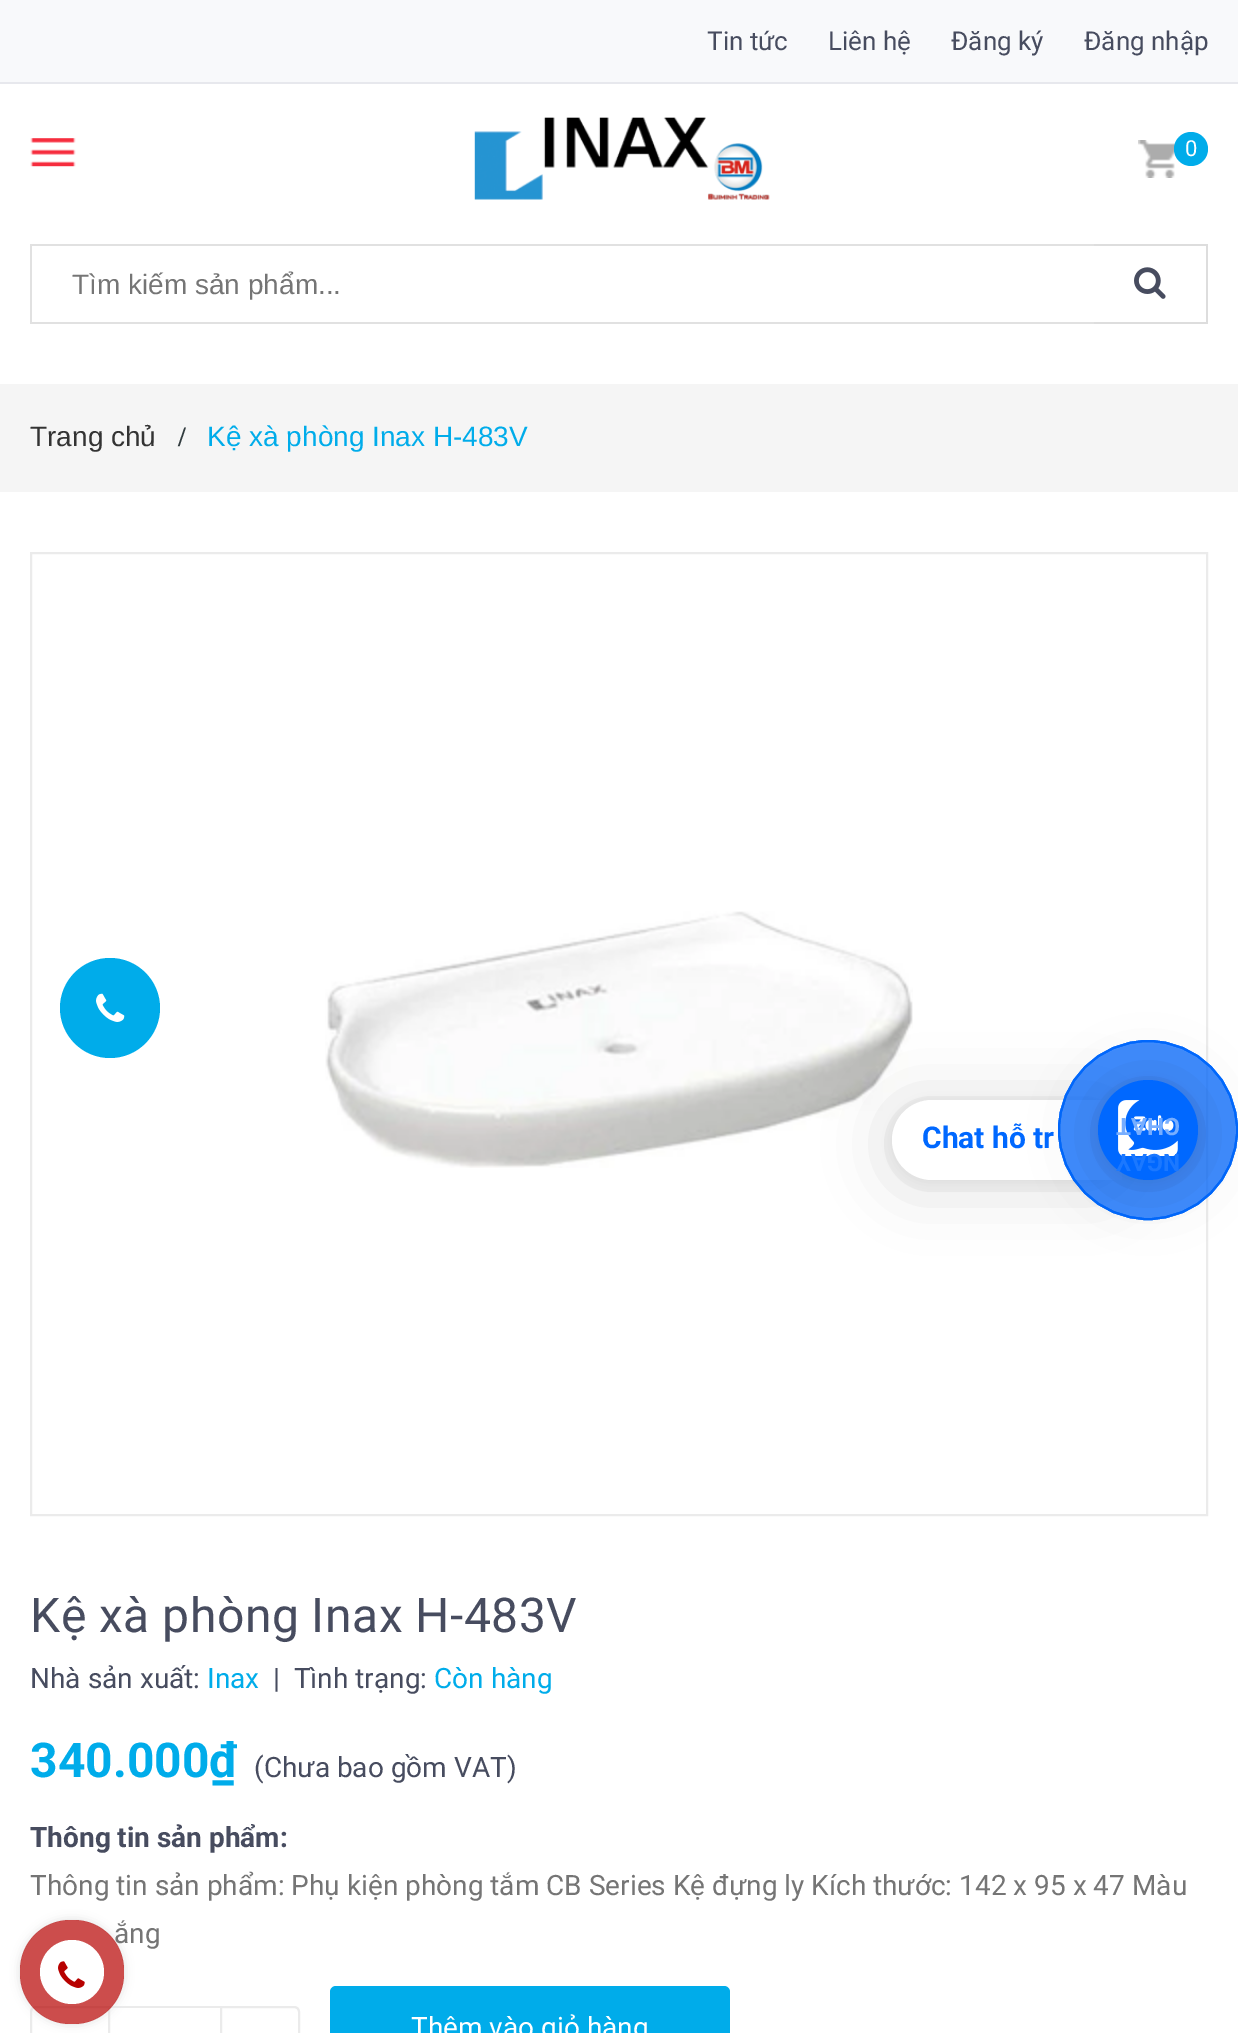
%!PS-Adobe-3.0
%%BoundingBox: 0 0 1238 2033
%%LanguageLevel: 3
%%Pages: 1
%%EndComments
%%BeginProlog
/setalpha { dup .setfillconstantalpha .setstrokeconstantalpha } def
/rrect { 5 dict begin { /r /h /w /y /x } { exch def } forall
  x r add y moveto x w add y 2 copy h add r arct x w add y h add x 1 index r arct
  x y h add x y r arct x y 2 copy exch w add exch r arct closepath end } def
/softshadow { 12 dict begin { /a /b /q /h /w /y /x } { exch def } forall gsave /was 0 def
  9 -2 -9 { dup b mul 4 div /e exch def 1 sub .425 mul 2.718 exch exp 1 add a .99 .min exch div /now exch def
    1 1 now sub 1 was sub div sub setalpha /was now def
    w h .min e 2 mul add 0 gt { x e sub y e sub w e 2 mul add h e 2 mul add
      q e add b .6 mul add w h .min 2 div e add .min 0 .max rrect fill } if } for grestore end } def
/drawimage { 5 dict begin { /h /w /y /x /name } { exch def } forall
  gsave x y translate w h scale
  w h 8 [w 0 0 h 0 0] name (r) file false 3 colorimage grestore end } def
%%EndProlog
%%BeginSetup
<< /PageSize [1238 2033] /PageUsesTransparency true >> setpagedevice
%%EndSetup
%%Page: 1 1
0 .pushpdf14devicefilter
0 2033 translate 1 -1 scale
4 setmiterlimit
1 setgray
0 0 1238 2033 rectfill
0.973 0.976 0.984 setrgbcolor
0 0 1238 82 rectfill
0.906 0.91 0.929 setrgbcolor
0 82 1238 2 rectfill
(images/1.raw) 30 138 46 29 drawimage
(images/2.raw) 474 117 296 83 drawimage
(images/3.raw) 1138 140 38 38 drawimage
0 0.675 0.918 setrgbcolor
newpath 1191 149 17 0 360 arc closepath fill
0.882 setgray
30 244 1066 2 rectfill
30 322 1066 2 rectfill
30 244 2 80 rectfill
0.867 setgray
1094 244 114 2 rectfill
1206 244 2 80 rectfill
1094 322 114 2 rectfill
(images/4.raw) 1134 267 32 32 drawimage
0.961 setgray
0 384 1238 108 rectfill
0.922 setgray
2 setlinewidth
31 553 1176 962 rectstroke
0 0.675 0.918 setrgbcolor
newpath 110 1008 50 0 360 arc closepath fill
(images/5.raw) 96 993 29 29 drawimage
(images/7.raw) 325 911 588 257 drawimage
0 setgray
892 1104 230 80 40 32 0.16 softshadow
892 1102 230 80 40 6 0.06 softshadow
1 setgray
newpath 932 1100 moveto 1122 1100 lineto 1122 1180 lineto 932 1180 lineto 910 1180 892 1162 892 1140 curveto 892 1118 910 1100 932 1100 curveto closepath fill
0.5 setalpha
0 0.408 1 setrgbcolor
newpath 1148 1130 89 0 360 arc closepath fill
1 setalpha
newpath 1148 1130 89 0 360 arc closepath stroke
0.5 setalpha
newpath 1148 1130 89 0 360 arc closepath fill
1 setalpha
newpath 1148 1130 89 0 360 arc closepath stroke
0 setgray
1098 1084 100 100 50 32 0.16 softshadow
1098 1082 100 100 50 6 0.06 softshadow
0 0.408 1 setrgbcolor
newpath 1148 1130 50 0 360 arc closepath fill
(images/6.raw) 1118 1100 60 56 drawimage
0.922 setgray
newpath 36 2007 moveto 109 2007 lineto 109 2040 lineto 36 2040 lineto 33 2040 31 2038 31 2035 curveto 31 2012 lineto 31 2009 33 2007 36 2007 curveto closepath stroke
110 2006 110 2 rectfill
newpath 221 2007 moveto 294 2007 lineto 297 2007 299 2009 299 2012 curveto 299 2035 lineto 299 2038 297 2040 294 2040 curveto 221 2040 lineto closepath stroke
0 0.675 0.918 setrgbcolor
330 1986 400 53 6 rrect fill
gsave
newpath 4 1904 moveto 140 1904 lineto 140 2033 lineto 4 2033 lineto closepath 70 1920 moveto 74 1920 lineto 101.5 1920 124 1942.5 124 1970 curveto 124 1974 lineto 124 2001.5 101.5 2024 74 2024 curveto 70 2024 lineto 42.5 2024 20 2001.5 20 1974 curveto 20 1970 lineto 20 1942.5 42.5 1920 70 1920 curveto closepath eoclip newpath
0.867 setgray
20 1920 104 104 50 5 1 softshadow
grestore
/Roboto-Regular [26 0 0 -26 0 0] selectfont
0.278 0.298 0.373 setrgbcolor
707 50 moveto (Tin tức) show
828 50 moveto (Liên hệ) show
951 50 moveto (Đăng ký) show
1084 50 moveto (Đăng nhập) show
/Roboto-Regular [22 0 0 -22 0 0] selectfont
1 setgray
1185 156 moveto (0) show
/LiberationSans-Regular [28 0 0 -28 0 0] selectfont
0.459 setgray
72 294 moveto (Tìm kiếm sản phẩm...) show
0.2 setgray
30 446 moveto (Trang chủ) show
/LiberationSerif-Bold [28 0 0 -28 0 0] selectfont
0.196 0.235 0.247 setrgbcolor
178 446 moveto (/) show
/LiberationSans-Regular [28 0 0 -28 0 0] selectfont
0 0.675 0.918 setrgbcolor
207 446 moveto (Kệ xà phòng Inax H-483V) show
/Roboto-Bold [30 0 0 -30 0 0] selectfont
0 0.408 1 setrgbcolor
922 1148 moveto (Chat hỗ tr) show
/Roboto-Bold [24 0 0 -24 0 0] selectfont
0.467 0.682 1 setrgbcolor
gsave 1180 1118 translate 180 rotate 0 0 moveto (CHAT) show grestore
0.106 0.471 1 setrgbcolor
gsave 1180 1154 translate 180 rotate 0 0 moveto (NGAY) show grestore
/Roboto-Regular [48 0 0 -48 0 0] selectfont
0.278 0.298 0.373 setrgbcolor
30 1632 moveto 0.5 0 (Kệ xà phòng Inax H-483V) ashow
/Roboto-Regular [28 0 0 -28 0 0] selectfont
30 1688 moveto (Nhà sản xuất:) show
0 0.675 0.918 setrgbcolor
207 1688 moveto (Inax) show
0.278 0.298 0.373 setrgbcolor
273 1688 moveto (|  Tình trạng:) show
0 0.675 0.918 setrgbcolor
434 1688 moveto (Còn hàng) show
/Roboto-Bold [48 0 0 -48 0 0] selectfont
30 1777 moveto (340.000₫) show
/Roboto-Regular [28 0 0 -28 0 0] selectfont
0.278 0.298 0.373 setrgbcolor
254 1777 moveto (\(Chưa bao gồm VAT\)) show
/Roboto-Bold [28 0 0 -28 0 0] selectfont
30 1847 moveto (Thông tin sản phẩm:) show
/Roboto-Regular [28 0 0 -28 0 0] selectfont
0.459 setgray
30 1895 moveto (Thông tin sản phẩm: Phụ kiện phòng tắm CB Series Kệ đựng ly Kích thước: 142 x 95 x 47 Màu) show
114 1943 moveto (ắng) show
1 setgray
411 2037 moveto (Thêm vào giỏ hàng) show
0.7 setalpha
0.718 0.004 0 setrgbcolor
20 1920 104 104 50 rrect fill
1 setalpha
1 setgray
newpath 72 1972 32 0 360 arc closepath fill
(images/8.raw) 58 1961 27 27 drawimage
.poppdf14devicefilter showpage
%%EOF
